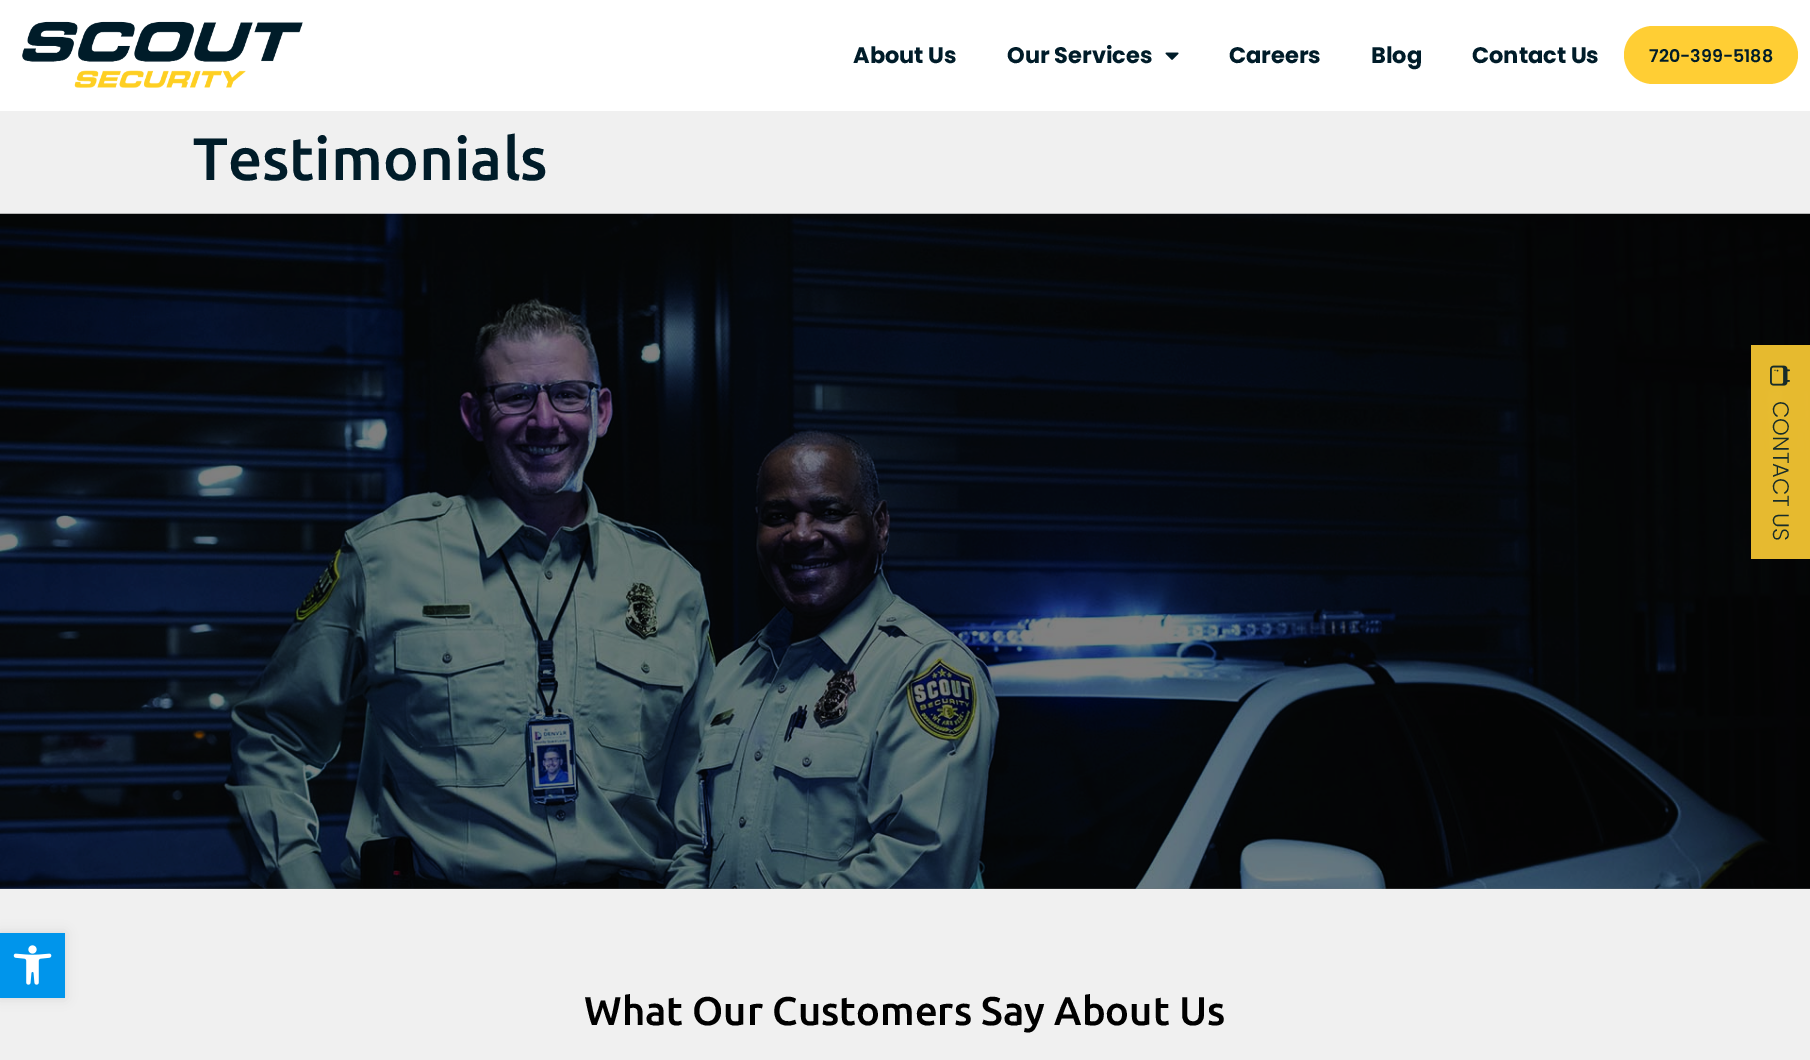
%!PS-Adobe-3.0
%%BoundingBox: 0 0 1810 1060
%%LanguageLevel: 3
%%Pages: 1
%%EndComments
%%BeginProlog
/setalpha { dup .setfillconstantalpha .setstrokeconstantalpha } def
/rrect { 5 dict begin { /r /h /w /y /x } { exch def } forall
  x r add y moveto x w add y 2 copy h add r arct x w add y h add x 1 index r arct
  x y h add x y r arct x y 2 copy exch w add exch r arct closepath end } def
/softshadow { 12 dict begin { /a /b /q /h /w /y /x } { exch def } forall gsave /was 0 def
  9 -2 -9 { dup b mul 4 div /e exch def 1 sub .425 mul 2.718 exch exp 1 add a .99 .min exch div /now exch def
    1 1 now sub 1 was sub div sub setalpha /was now def
    w h .min e 2 mul add 0 gt { x e sub y e sub w e 2 mul add h e 2 mul add
      q e add b .6 mul add w h .min 2 div e add .min 0 .max rrect fill } if } for grestore end } def
/drawimage { 5 dict begin { /h /w /y /x /name } { exch def } forall
  gsave x y translate w h scale
  w h 8 [w 0 0 h 0 0] name (r) file false 3 colorimage grestore end } def
%%EndProlog
%%BeginSetup
<< /PageSize [1810 1060] /PageUsesTransparency true >> setpagedevice
%%EndSetup
%%Page: 1 1
0 .pushpdf14devicefilter
0 1060 translate 1 -1 scale
4 setmiterlimit
0.941 setgray
0 0 1810 1060 rectfill
1 setgray
0 0 1810 111 rectfill
(images/1.raw) 22 21 281 67 drawimage
(images/2.raw) 1165 52 14 8 drawimage
1 0.808 0.204 setrgbcolor
1624 26 174 58 29 rrect fill
(images/3.raw) 0 213 1810 676 drawimage
0.9 setalpha
1751 345 59 214 rectfill
1 setalpha
(images/4.raw) 1770 365 20 21 drawimage
0 setgray
0 933 65 65 0 6 0.1 softshadow
0 0.584 0.922 setrgbcolor
0 933 65 65 rectfill
(images/5.raw) 13 945 39 40 drawimage
/Poppins-Bold [22.5 0 0 -22.5 0 0] selectfont
0 0.11 0.161 setrgbcolor
853 63 moveto (About Us) show
1007 63 moveto (Our Services) show
1229 63 moveto (Careers) show
1371 63 moveto (Blog) show
1472 63 moveto (Contact Us) show
/Poppins-SemiBold [17.5 0 0 -17.5 0 0] selectfont
1649 62 moveto (720-399-5188) show
/Ubuntu-Medium [60 0 0 -60 0 0] selectfont
193 180 moveto (Testimonials) show
/Ubuntu-Medium [40 0 0 -40 0 0] selectfont
0 setgray
584 1025 moveto (What Our Customers Say About Us) show
/Poppins-Light [22.5 0 0 -22.5 0 0] selectfont
0.09 0.173 0.165 setrgbcolor
gsave 1773 401 translate 90 rotate 0 0 moveto (CONTACT US) show grestore
.poppdf14devicefilter showpage
%%EOF
